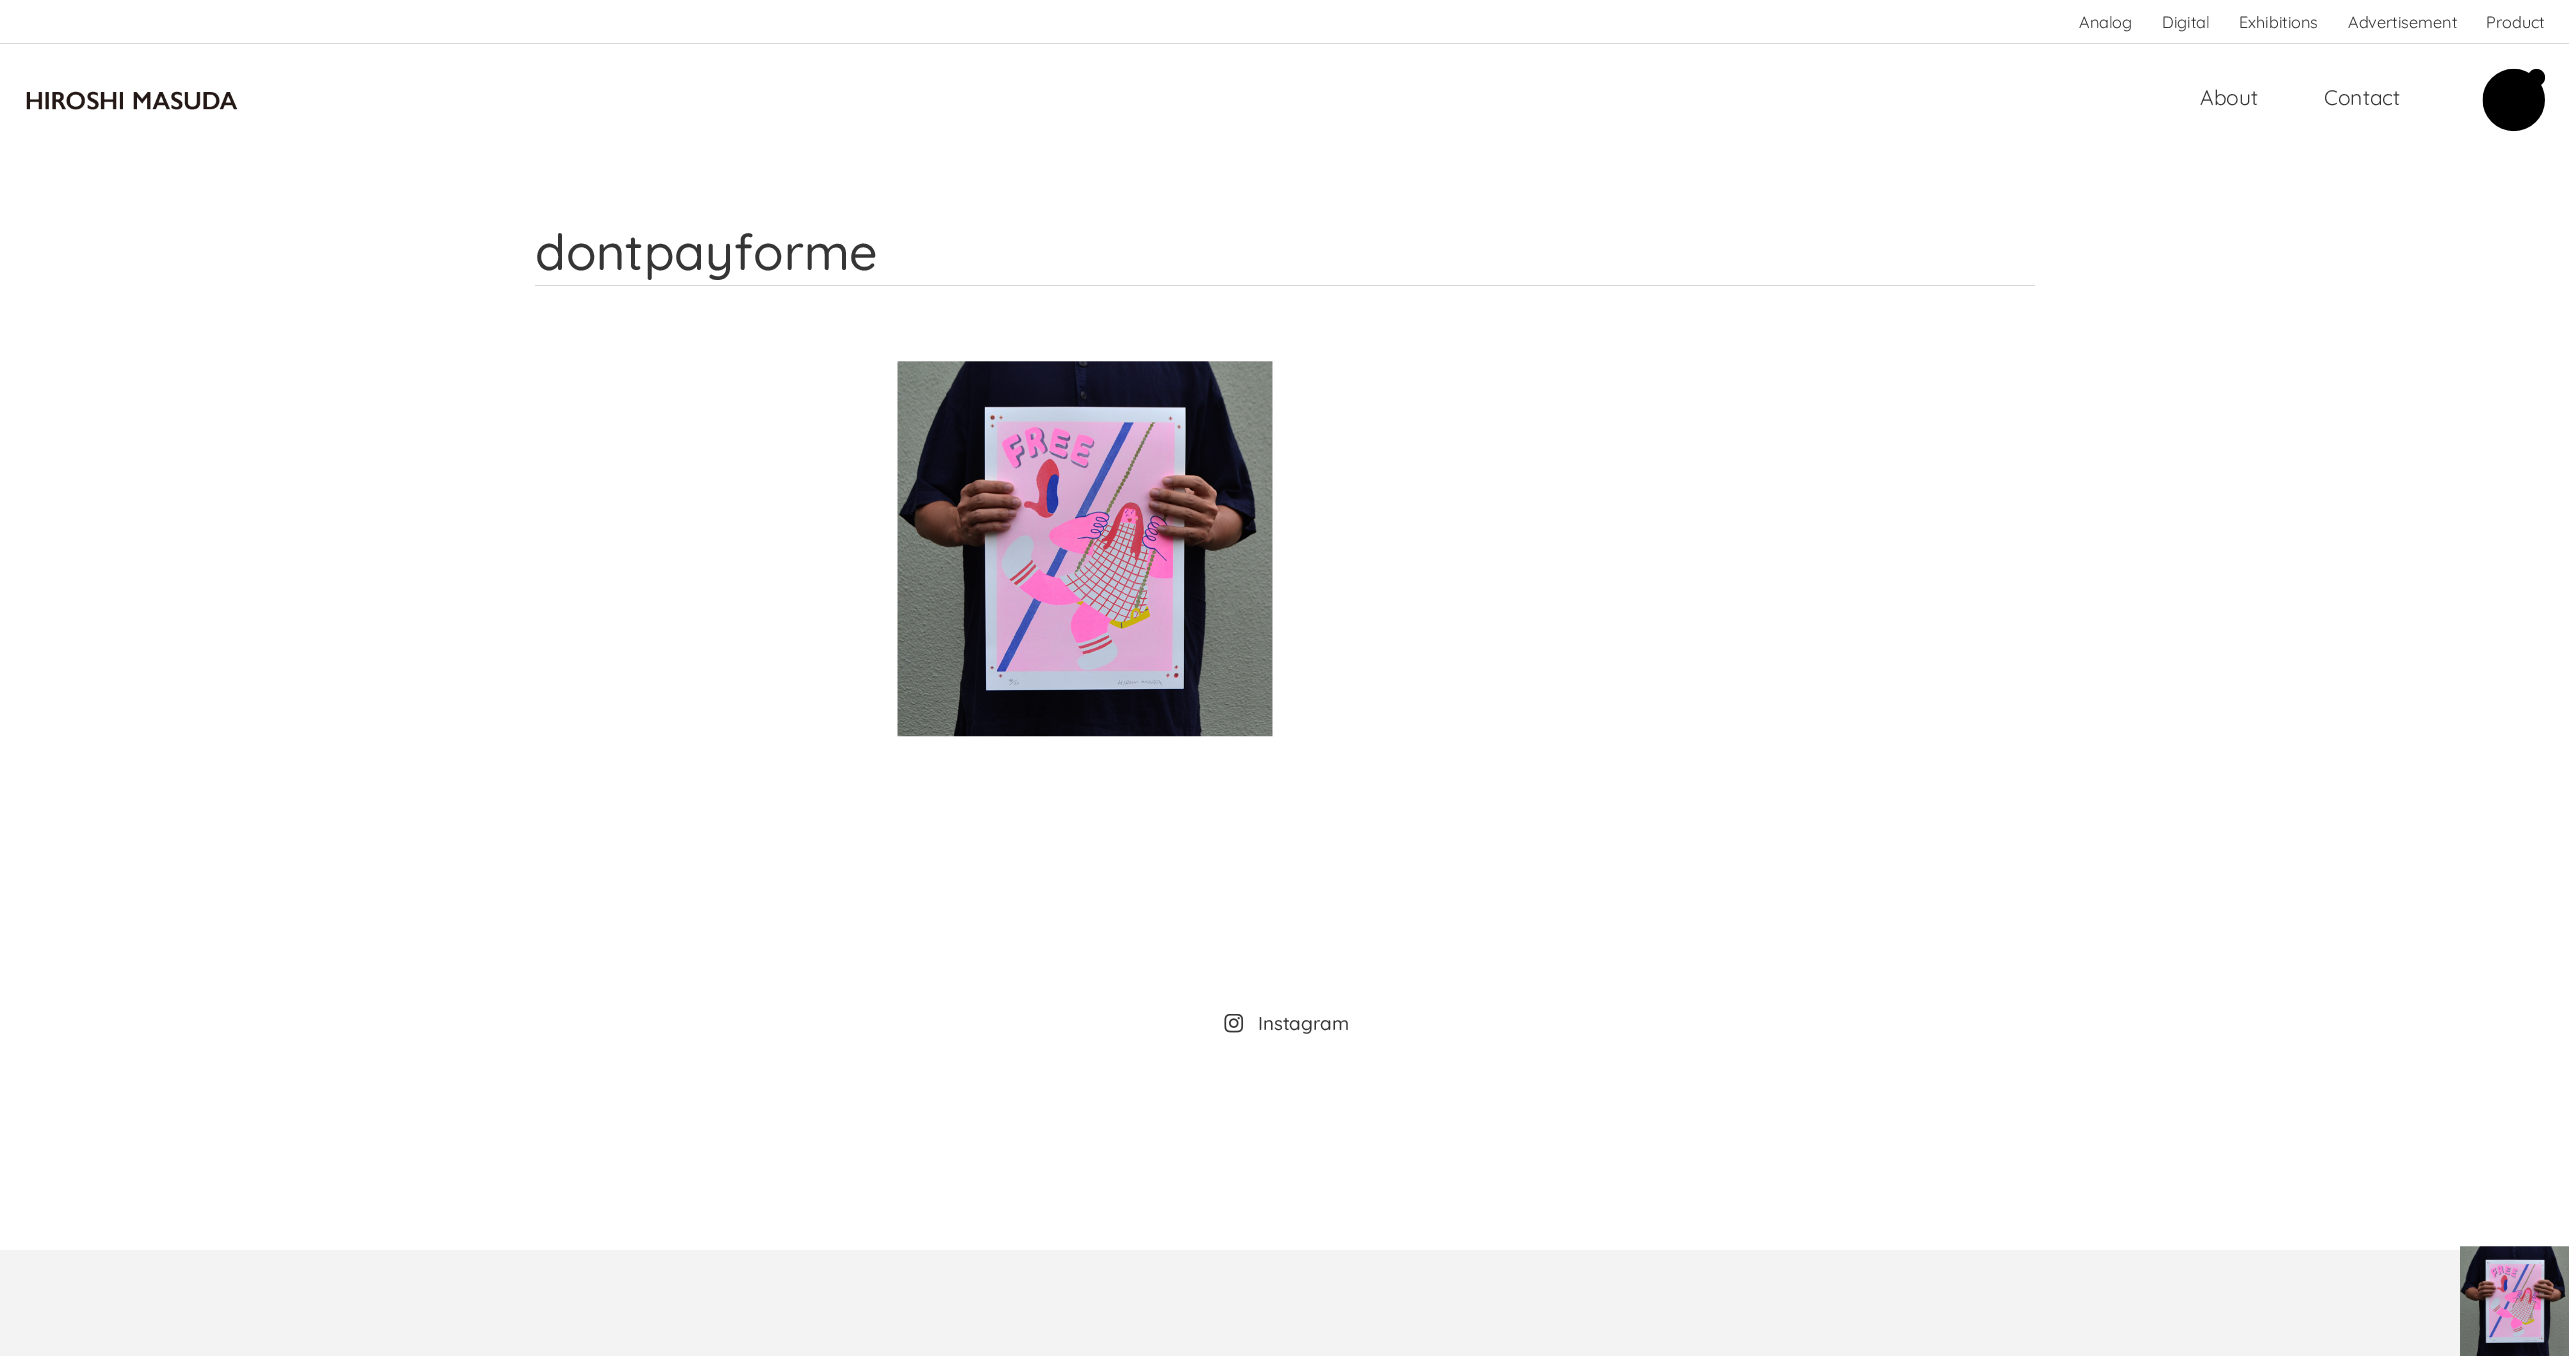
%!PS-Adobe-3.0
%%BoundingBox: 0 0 2569 1356
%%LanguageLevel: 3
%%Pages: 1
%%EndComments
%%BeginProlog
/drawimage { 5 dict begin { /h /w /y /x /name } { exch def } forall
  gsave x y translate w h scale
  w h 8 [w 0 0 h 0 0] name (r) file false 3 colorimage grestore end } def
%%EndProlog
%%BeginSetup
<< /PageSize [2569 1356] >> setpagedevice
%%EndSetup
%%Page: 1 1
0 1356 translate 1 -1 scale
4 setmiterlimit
0.953 setgray
0 0 2569 1356 rectfill
1 setgray
0 0 2569 1250 rectfill
0.843 setgray
0 43 2569 1 rectfill
(images/1.raw) 26 91 212 19 drawimage
(images/2.raw) 2482 68 63 64 drawimage
0 setgray
newpath 2536.5 77.5 8.5 0 360 arc closepath fill
0.843 setgray
535 285 1500 1 rectfill
(images/3.raw) 897 361 376 376 drawimage
(images/4.raw) 1224 1014 20 19 drawimage
(images/5.raw) 2460 1246 109 110 drawimage
/Quicksand-Regular [16.25 0 0 -16.25 0 0] selectfont
0.208 setgray
2079 28 moveto (Analog) show
2162 28 moveto (Digital) show
2239 28 moveto (Exhibitions) show
2348 28 moveto (Advertisement) show
2486 28 moveto (Product) show
/Quicksand-Regular [21 0 0 -21 0 0] selectfont
2200 105 moveto (About) show
2324 105 moveto (Contact) show
/Quicksand-Medium [50 0 0 -50 0 0] selectfont
535 270 moveto (dontpayforme) show
/Quicksand-Medium [18.75 0 0 -18.75 0 0] selectfont
1258 1030 moveto (Instagram) show
showpage
%%EOF
